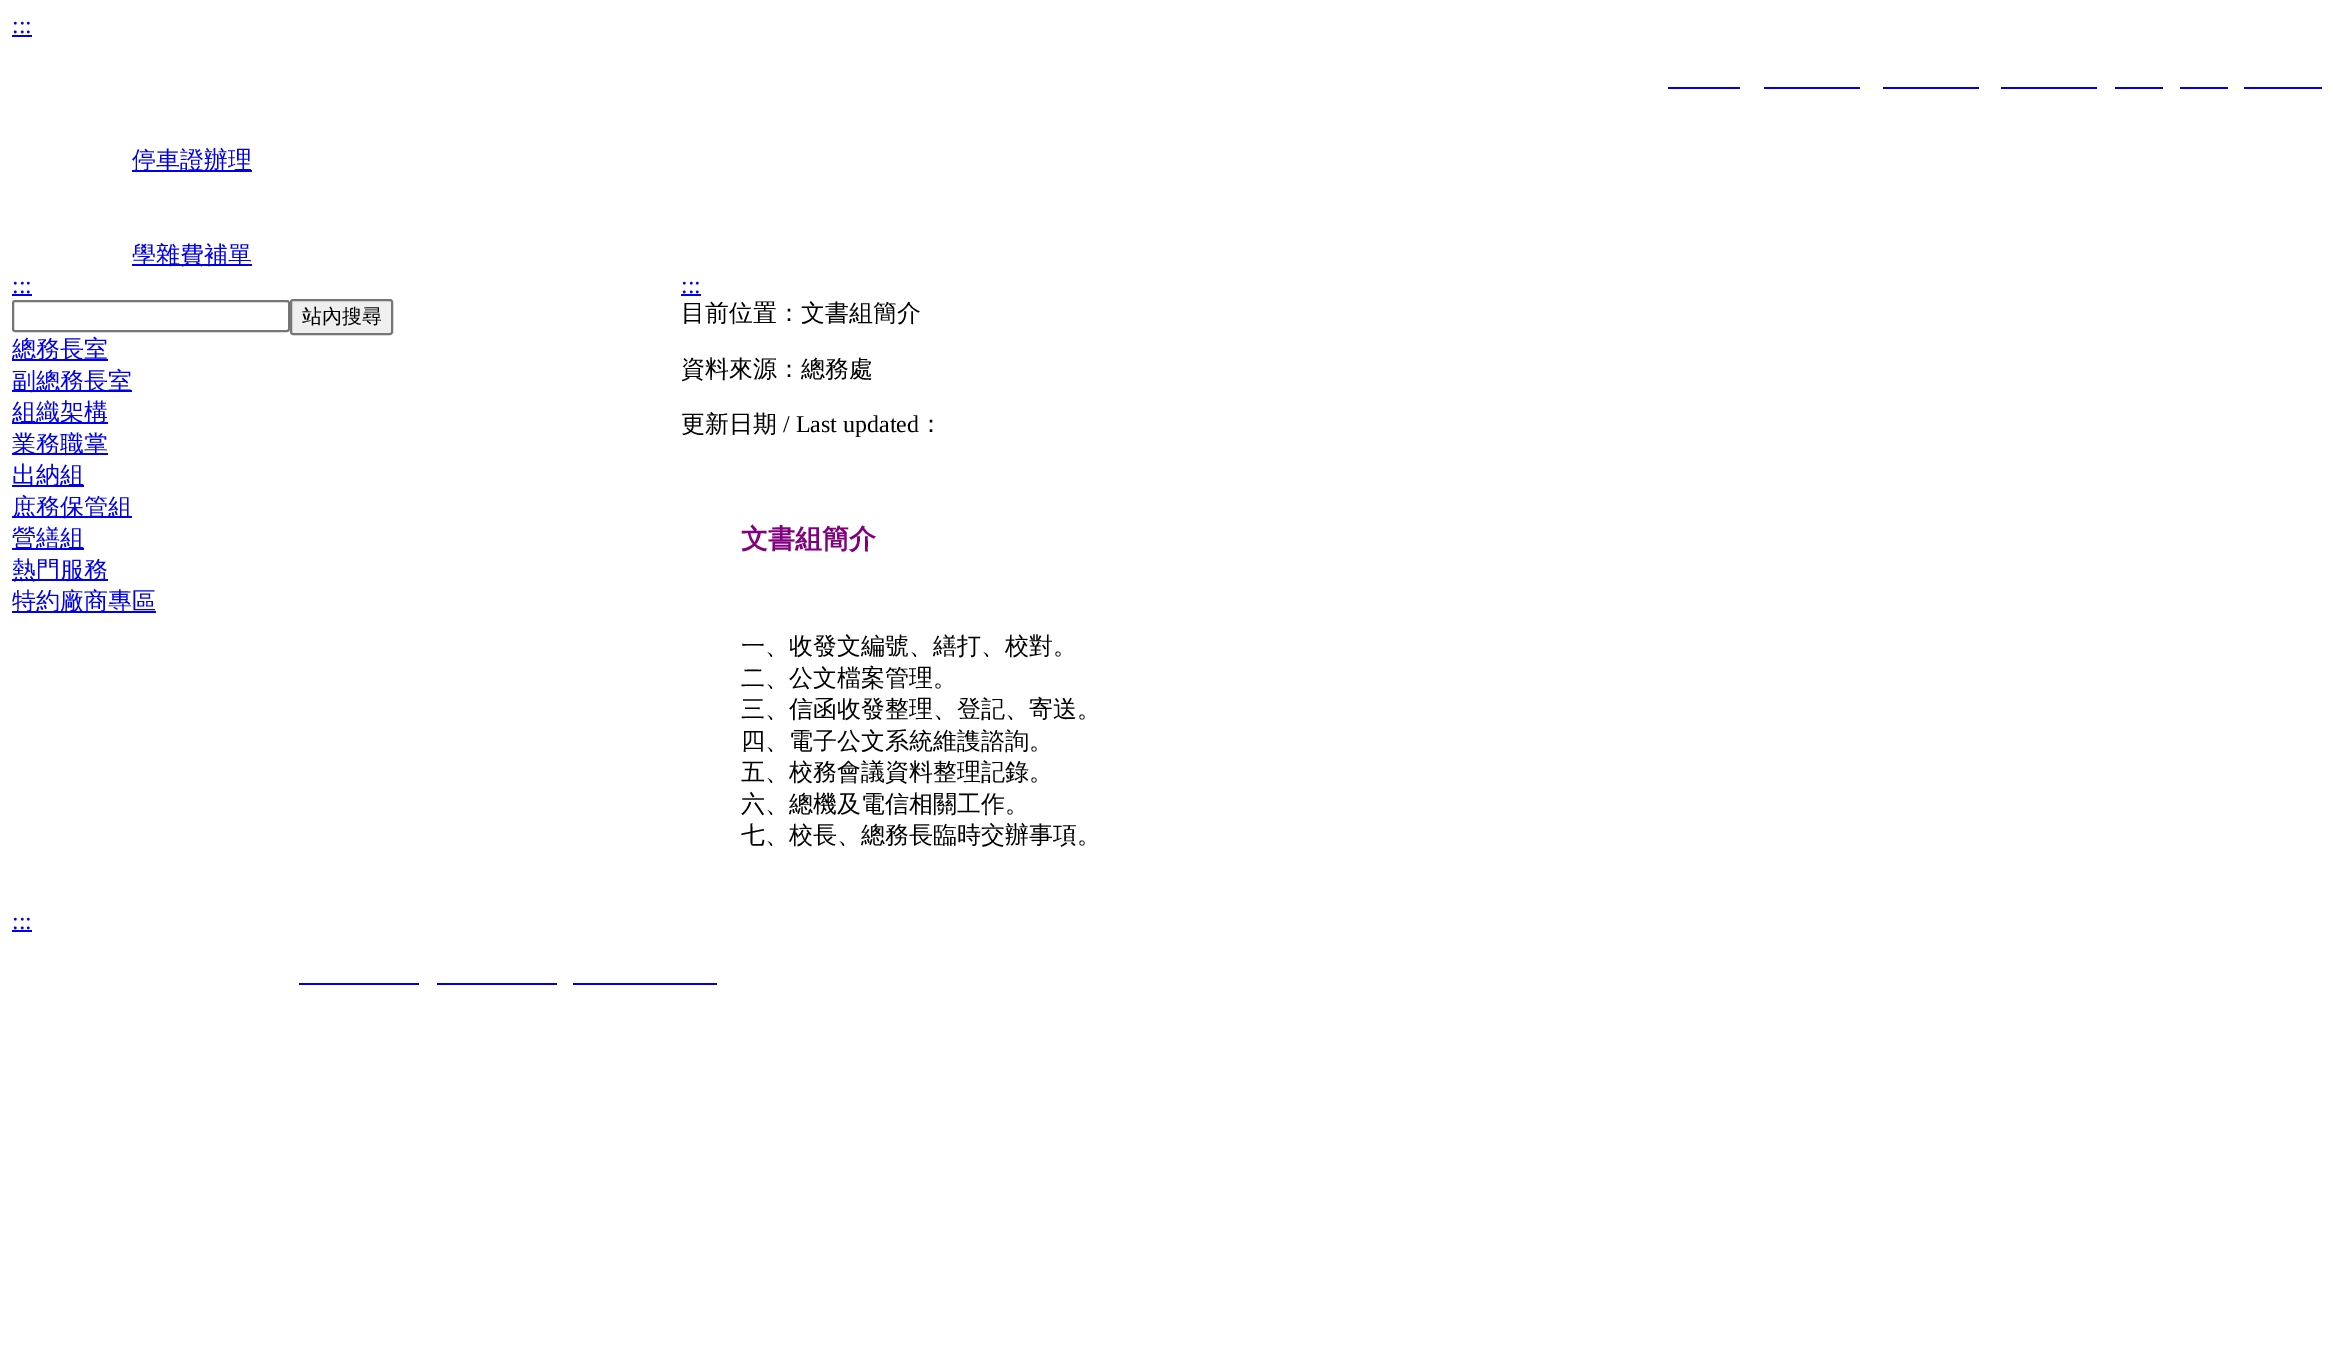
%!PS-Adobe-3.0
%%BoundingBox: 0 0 2333 1350
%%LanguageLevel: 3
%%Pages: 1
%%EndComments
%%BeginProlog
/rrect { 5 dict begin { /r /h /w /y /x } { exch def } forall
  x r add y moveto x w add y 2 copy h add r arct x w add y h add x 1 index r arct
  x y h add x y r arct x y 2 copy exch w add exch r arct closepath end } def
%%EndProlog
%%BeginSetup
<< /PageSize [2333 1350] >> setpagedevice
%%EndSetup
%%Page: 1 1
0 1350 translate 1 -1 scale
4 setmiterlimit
1 setgray
0 0 2333 1350 rectfill
0 0 0.933 setrgbcolor
12 35 20 2 rectfill
1668 87 72 2 rectfill
1764 87 96 2 rectfill
1883 87 96 2 rectfill
2001 87 96 2 rectfill
2115 87 48 2 rectfill
2180 87 48 2 rectfill
2244 87 78 2 rectfill
132 170 120 2 rectfill
132 264 120 2 rectfill
12 294 20 2 rectfill
0.463 setgray
2 setlinewidth
13 301 276 30 2 rrect stroke
0.937 setgray
291 300 101 34 2 rrect gsave fill grestore
0.463 setgray
stroke
0 0 0.933 setrgbcolor
12 359 96 2 rectfill
12 390 120 2 rectfill
12 422 96 2 rectfill
12 453 96 2 rectfill
12 485 72 2 rectfill
12 516 120 2 rectfill
12 548 72 2 rectfill
12 579 96 2 rectfill
12 611 144 2 rectfill
681 294 20 2 rectfill
12 930 20 2 rectfill
299 983 120 2 rectfill
437 983 120 2 rectfill
573 983 144 2 rectfill
/LiberationSerif-Regular [24 0 0 -24 0 0] selectfont
12 33 moveto (:::) show
/WenQuanYiZenHei-Medium [24 0 0 -24 0 0] selectfont
132 168 moveto (停車證辦理) show
132 263 moveto (學雜費補單) show
/LiberationSerif-Regular [24 0 0 -24 0 0] selectfont
12 293 moveto (:::) show
/WenQuanYiZenHei-Medium [20 0 0 -20 0 0] selectfont
0 setgray
302 323 moveto (站內搜尋) show
/WenQuanYiZenHei-Medium [24 0 0 -24 0 0] selectfont
0 0 0.933 setrgbcolor
12 357 moveto (總務長室) show
12 389 moveto (副總務長室) show
12 420 moveto (組織架構) show
12 452 moveto (業務職掌) show
12 483 moveto (出納組) show
12 515 moveto (庶務保管組) show
12 546 moveto (營繕組) show
12 578 moveto (熱門服務) show
12 609 moveto (特約廠商專區) show
/LiberationSerif-Regular [24 0 0 -24 0 0] selectfont
681 293 moveto (:::) show
/WenQuanYiZenHei-Medium [24 0 0 -24 0 0] selectfont
0 setgray
681 321 moveto (目前位置：文書組簡介) show
681 377 moveto (資料來源：總務處) show
681 432 moveto (更新日期) show
/LiberationSerif-Regular [24 0 0 -24 0 0] selectfont
783 432 moveto (/ Last updated) show
/WenQuanYiZenHei-Medium [24 0 0 -24 0 0] selectfont
919 432 moveto (：) show
/WenQuanYiZenHei-Bold [27 0 0 -27 0 0] selectfont
0.502 0 0.502 setrgbcolor
741 548 moveto (文書組簡介) show
/WenQuanYiZenHei-Medium [24 0 0 -24 0 0] selectfont
0 setgray
741 654 moveto (一、收發文編號、繕打、校對。) show
741 686 moveto (二、公文檔案管理。) show
741 717 moveto (三、信函收發整理、登記、寄送。) show
741 749 moveto (四、電子公文系統維謢諮詢。) show
741 780 moveto (五、校務會議資料整理記錄。) show
741 812 moveto (六、總機及電信相關工作。) show
741 843 moveto (七、校長、總務長臨時交辦事項。) show
/LiberationSerif-Regular [24 0 0 -24 0 0] selectfont
0 0 0.933 setrgbcolor
12 929 moveto (:::) show
showpage
%%EOF
